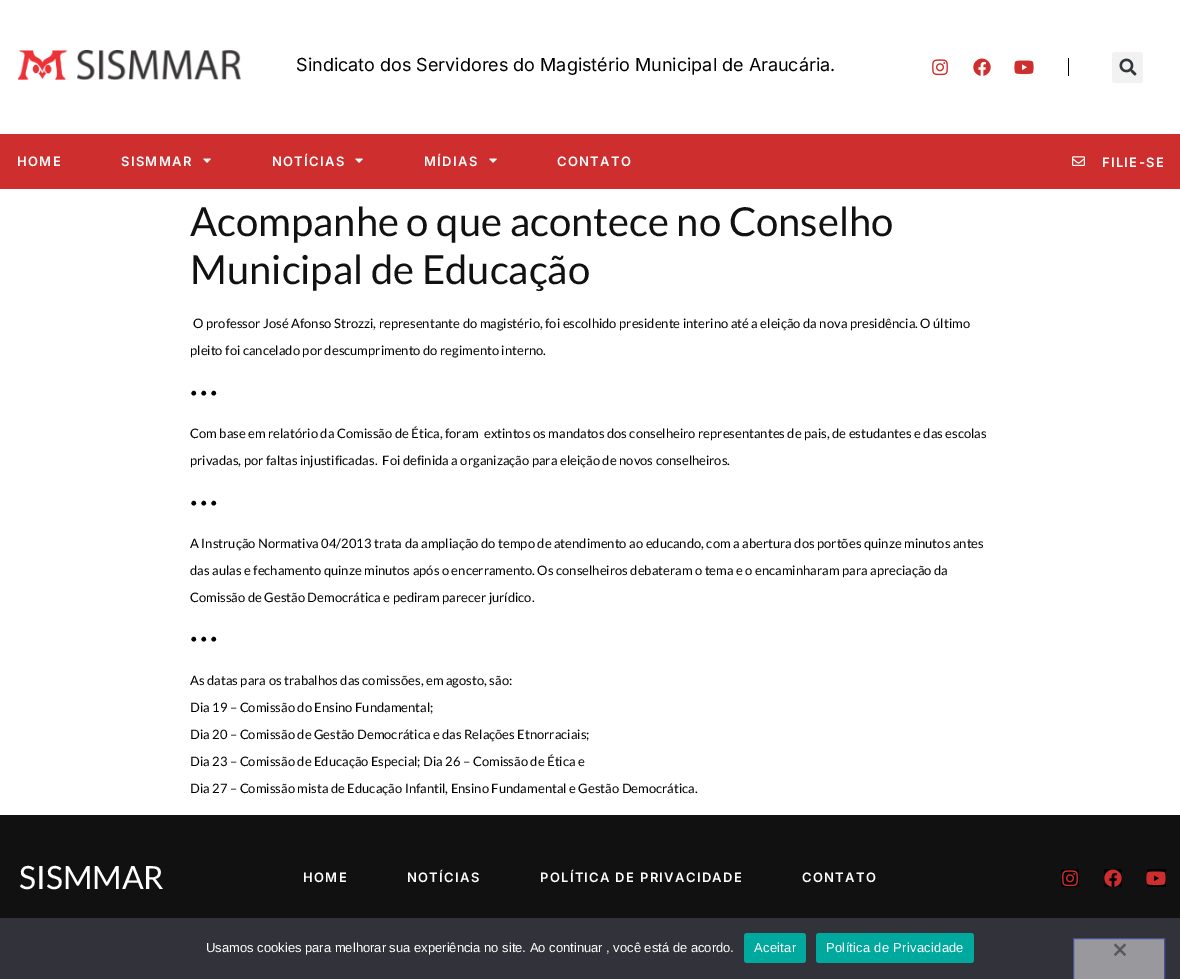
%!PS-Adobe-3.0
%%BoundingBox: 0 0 1180 979
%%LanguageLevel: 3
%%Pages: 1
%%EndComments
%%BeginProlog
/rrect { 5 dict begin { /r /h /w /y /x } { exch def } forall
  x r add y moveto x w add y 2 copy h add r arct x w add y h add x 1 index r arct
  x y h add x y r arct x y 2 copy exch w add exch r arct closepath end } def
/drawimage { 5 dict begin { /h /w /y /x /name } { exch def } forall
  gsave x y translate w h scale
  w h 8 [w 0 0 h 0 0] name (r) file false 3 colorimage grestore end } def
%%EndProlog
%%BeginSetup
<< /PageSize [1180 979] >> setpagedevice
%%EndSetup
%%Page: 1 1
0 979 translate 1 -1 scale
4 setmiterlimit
1 setgray
0 0 1180 979 rectfill
(images/1.raw) 18 50 223 30 drawimage
0 setgray
1068 58 1 18 rectfill
(images/2.raw) 932 59 16 17 drawimage
(images/3.raw) 973 58 18 18 drawimage
(images/4.raw) 1014 60 20 14 drawimage
0.949 setgray
1112 52 31 31 3 rrect fill
(images/5.raw) 1119 58 18 18 drawimage
0.812 0.18 0.18 setrgbcolor
0 134 1180 55 rectfill
(images/6.raw) 203 158 8 5 drawimage
(images/6.raw) 355 158 8 5 drawimage
(images/6.raw) 489 158 8 5 drawimage
(images/7.raw) 1072 156 13 10 drawimage
0.067 setgray
0 815 1180 103 rectfill
0 setgray
1165 869 1 18 rectfill
1061 869 18 18 2 rrect fill
(images/8.raw) 1062 870 16 17 drawimage
1104 869 18 18 2 rrect fill
(images/9.raw) 1104 869 18 18 drawimage
1147 869 18 18 2 rrect fill
(images/10.raw) 1146 871 20 14 drawimage
0.196 0.196 0.227 setrgbcolor
0 918 1180 61 rectfill
0 0.663 0.616 setrgbcolor
744 933 62 30 3 rrect fill
816 933 158 30 3 rrect fill
0.6 0.6 0.616 setrgbcolor
newpath 1073.5 938.5 moveto 1164.5 938.5 lineto 1164.5 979.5 lineto 1073.5 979.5 lineto closepath gsave fill grestore
0.282 0.325 0.576 setrgbcolor
stroke
0.349 0.349 0.365 setrgbcolor
newpath 1124.5 943.5 moveto 1126 945 lineto 1115.5 956 lineto 1114 954.5 lineto closepath fill
newpath 1114 945 moveto 1115.5 943.5 lineto 1126 954.5 lineto 1124.5 956 lineto closepath fill
/Inter-Regular [18 0 0 -18 0 0] selectfont
0 setgray
296 71 moveto (Sindicato dos Servidores do Magistério Municipal de Araucária.) show
/Inter-SemiBold [13 0 0 -13 0 0] selectfont
1 setgray
17 166 moveto 1.3 0 (HOME) ashow
121 166 moveto 1.3 0 (SISMMAR) ashow
272 166 moveto 1.3 0 (NOTÍCIAS) ashow
424 166 moveto 1.3 0 (MÍDIAS) ashow
557 166 moveto 1.3 0 (CONTATO) ashow
1102 167 moveto 1.3 0 (FILIE-SE) ashow
/Lato-Regular [40 0 0 -40 0 0] selectfont
0.067 setgray
190 236 moveto (Acompanhe o que acontece no Conselho) show
190 284 moveto (Municipal de Educação) show
/Lato-Regular [13 0 0 -13 0 0] selectfont
0 setgray
193 328 moveto (O professor José Afonso Strozzi, representante do magistério, foi escolhido presidente interino até a eleição da nova presidência. O último) show
190 355 moveto (pleito foi cancelado por descumprimento do regimento interno.) show
190 397 moveto (• • •) show
190 438 moveto (Com base em relatório da Comissão de Ética, foram  extintos os mandatos dos conselheiro representantes de pais, de estudantes e das escolas) show
190 465 moveto (privadas, por faltas injustificadas.  Foi definida a organização para eleição de novos conselheiros.) show
190 507 moveto (• • •) show
190 548 moveto (A Instrução Normativa 04/2013 trata da ampliação do tempo de atendimento ao educando, com a abertura dos portões quinze minutos antes) show
190 575 moveto (das aulas e fechamento quinze minutos após o encerramento. Os conselheiros debateram o tema e o encaminharam para apreciação da) show
190 602 moveto (Comissão de Gestão Democrática e pediram parecer jurídico.) show
190 643 moveto (• • •) show
190 685 moveto (As datas para os trabalhos das comissões, em agosto, são:) show
190 712 moveto (Dia 19 – Comissão do Ensino Fundamental;) show
190 739 moveto (Dia 20 – Comissão de Gestão Democrática e das Relações Etnorraciais;) show
190 766 moveto (Dia 23 – Comissão de Educação Especial; Dia 26 – Comissão de Ética e) show
190 793 moveto (Dia 27 – Comissão mista de Educação Infantil, Ensino Fundamental e Gestão Democrática.) show
/Lato-Regular [32 0 0 -32 0 0] selectfont
1 setgray
19 889 moveto (SISMMAR) show
/Inter-SemiBold [13 0 0 -13 0 0] selectfont
303 882 moveto 1.3 0 (HOME) ashow
407 882 moveto 1.3 0 (NOTÍCIAS) ashow
540 882 moveto 1.3 0 (POLÍTICA DE PRIVACIDADE) ashow
802 882 moveto 1.3 0 (CONTATO) ashow
/LiberationSans-Regular [13 0 0 -13 0 0] selectfont
206 952 moveto (Usamos cookies para melhorar sua experiência no site. Ao continuar , você está de acordo.) show
754 952 moveto 0.25 0 (Aceitar) ashow
826 952 moveto 0.25 0 (Política de Privacidade) ashow
showpage
%%EOF
